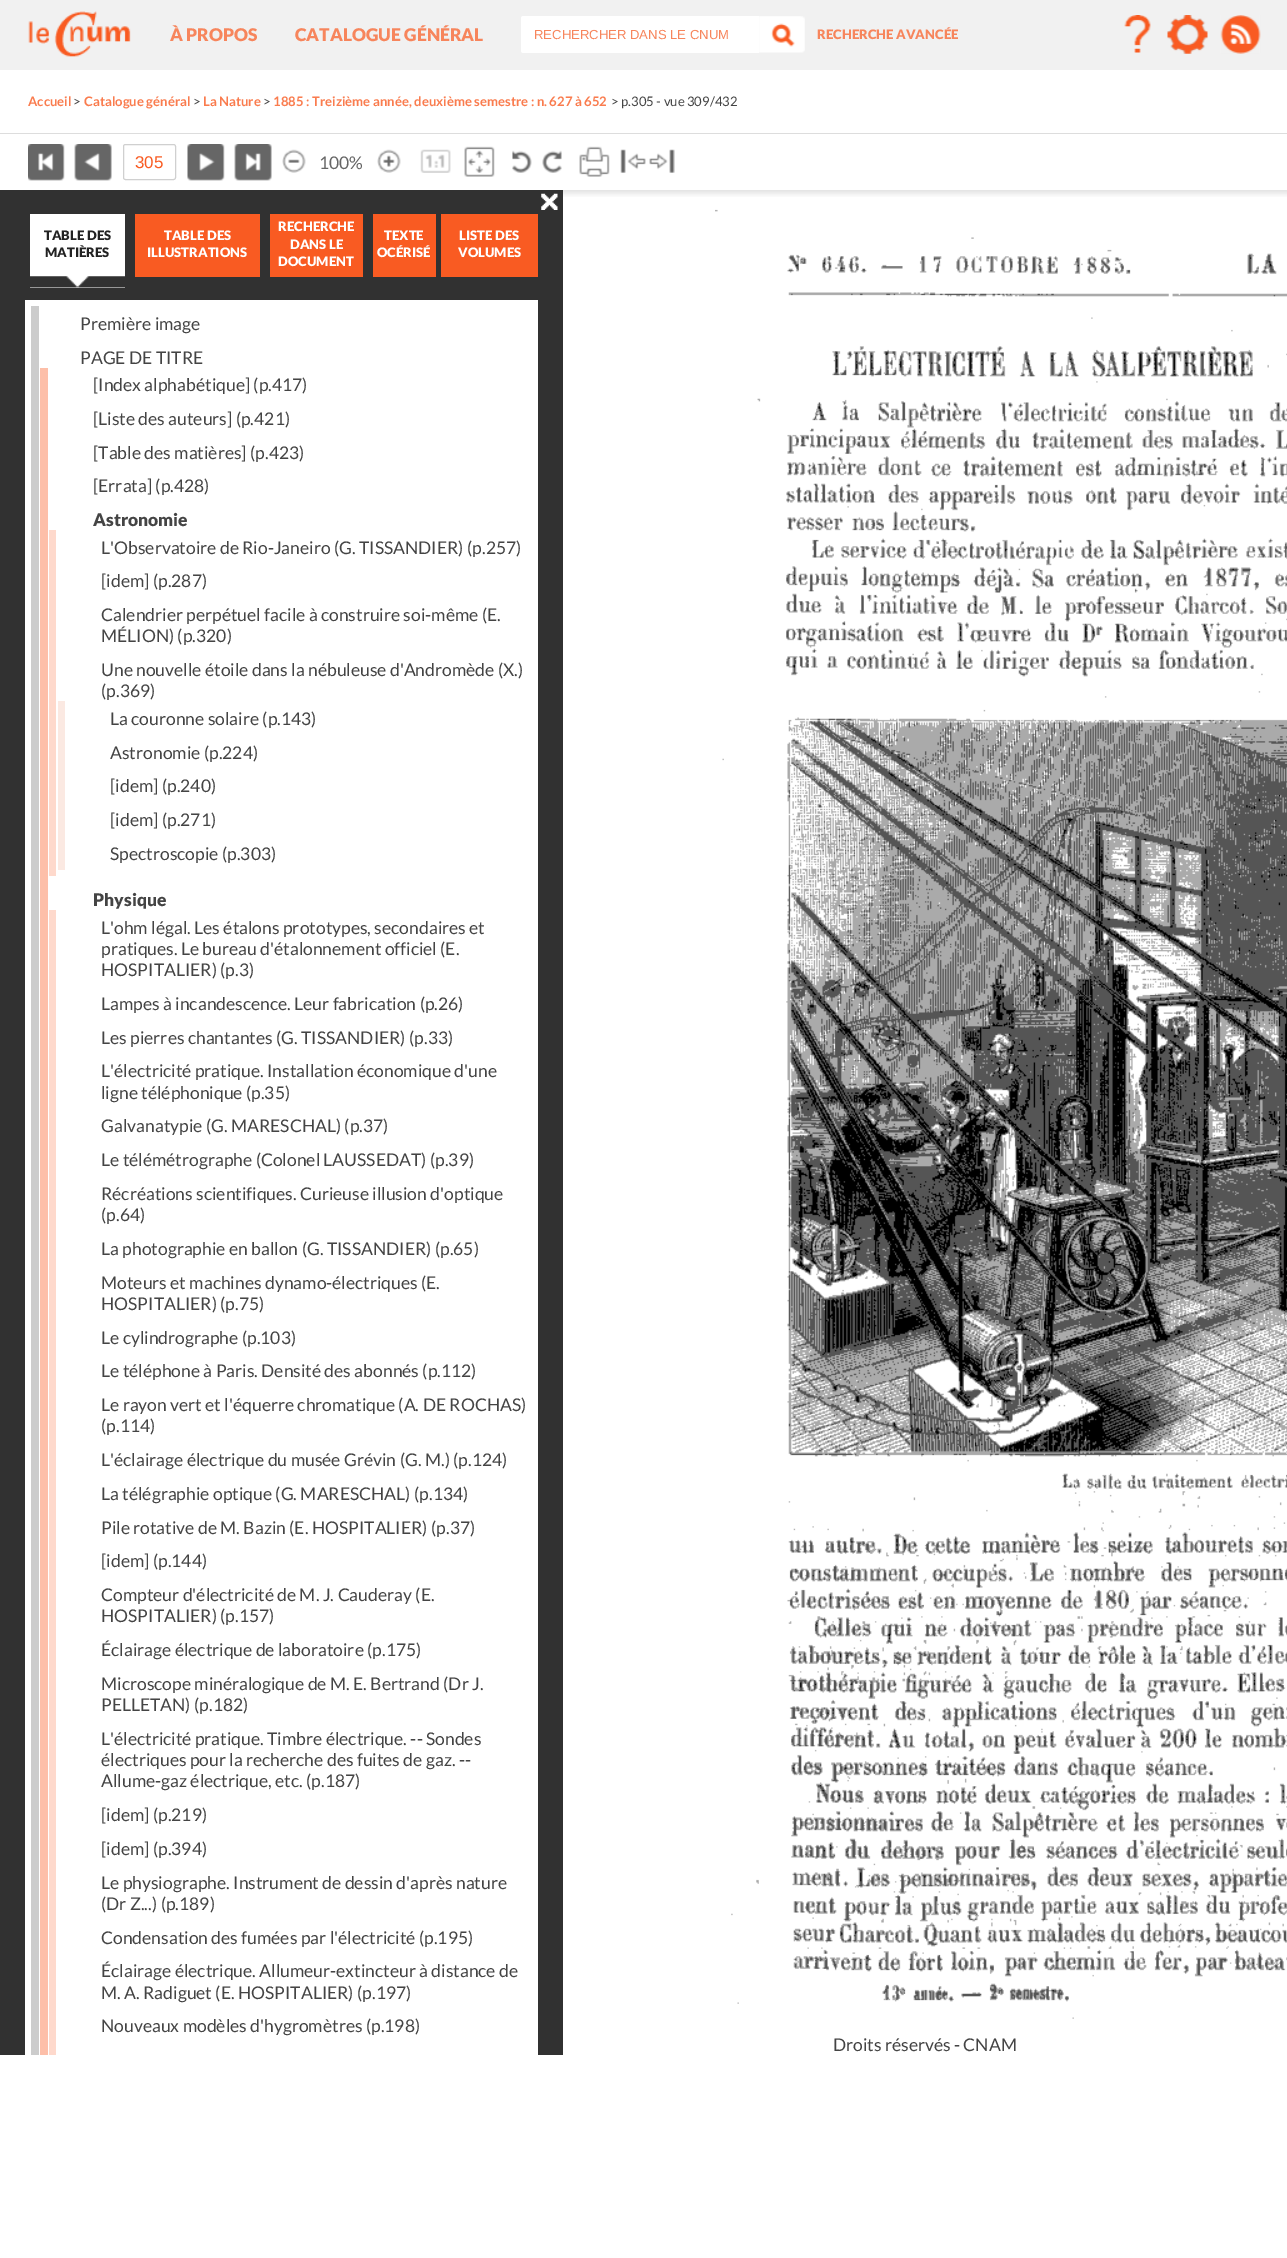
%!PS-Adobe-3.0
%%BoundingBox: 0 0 1287 2258
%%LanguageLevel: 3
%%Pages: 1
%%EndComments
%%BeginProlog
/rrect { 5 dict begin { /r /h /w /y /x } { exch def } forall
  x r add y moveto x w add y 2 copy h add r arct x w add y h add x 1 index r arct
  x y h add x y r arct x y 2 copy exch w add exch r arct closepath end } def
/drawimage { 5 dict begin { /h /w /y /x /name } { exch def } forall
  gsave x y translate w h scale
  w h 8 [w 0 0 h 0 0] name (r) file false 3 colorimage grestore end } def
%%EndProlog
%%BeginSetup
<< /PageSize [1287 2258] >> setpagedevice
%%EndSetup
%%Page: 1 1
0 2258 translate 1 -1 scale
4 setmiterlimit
1 setgray
0 0 1287 2258 rectfill
0.945 setgray
0 0 1287 70 rectfill
(images/1.raw) 28 11 103 46 drawimage
1 setgray
newpath 523.5 16 moveto 759 16 lineto 759 53 lineto 523.5 53 lineto 522 53 521 52 521 50.5 curveto 521 18.5 lineto 521 17 522 16 523.5 16 curveto closepath fill
(images/2.raw) 759 16 46 37 drawimage
(images/3.raw) 1124 15 27 38 drawimage
(images/4.raw) 1167 15 41 39 drawimage
(images/5.raw) 1220 15 41 39 drawimage
0.867 setgray
0 133 1287 1 rectfill
(images/6.raw) 28 144 37 37 drawimage
(images/7.raw) 74 144 38 37 drawimage
0.816 setgray
123.5 144.5 52 35 2 rrect stroke
(images/8.raw) 187 144 38 37 drawimage
(images/9.raw) 234 144 38 37 drawimage
(images/10.raw) 282 149 24 24 drawimage
(images/11.raw) 377 149 24 24 drawimage
(images/12.raw) 420 149 31 24 drawimage
(images/13.raw) 464 146 31 31 drawimage
(images/14.raw) 512 150 20 23 drawimage
(images/15.raw) 542 150 20 23 drawimage
(images/16.raw) 579 146 31 31 drawimage
(images/17.raw) 620 149 26 24 drawimage
(images/18.raw) 649 149 26 24 drawimage
(images/19.raw) 563 190 724 7 drawimage
0.192 setgray
0 190 563 1865 rectfill
(images/20.raw) 541 193 17 17 drawimage
1 setgray
30 214 95 74 rectfill
(images/21.raw) 30 276 95 12 drawimage
0.976 0.357 0.133 setrgbcolor
135 214 125 63 rectfill
270 214 93 63 rectfill
373 214 63 63 rectfill
441 214 97 63 rectfill
1 setgray
25 300 513 1755 rectfill
0.8 setgray
31 306 8 1749 rectfill
0.992 0.749 0.663 setrgbcolor
40 368 8 1687 rectfill
0.996 0.851 0.8 setrgbcolor
49 530 7 346 rectfill
0.984 0.914 0.886 setrgbcolor
58 701 7 169 rectfill
0.996 0.851 0.8 setrgbcolor
49 910 7 1145 rectfill
(images/22.raw) 715 209 572 1810 drawimage
/Lato-Black [17.5 0 0 -17.5 0 0] selectfont
0.969 0.522 0.361 setrgbcolor
170 41 moveto (À PROPOS) show
295 41 moveto (CATALOGUE GÉNÉRAL) show
/LiberationSans-Regular [13.1 0 0 -13.1 0 0] selectfont
534 39 moveto (RECHERCHER DANS LE CNUM) show
/Lato-Black [13.1 0 0 -13.1 0 0] selectfont
817 39 moveto (RECHERCHE AVANCÉE) show
/Lato-Bold [13.1 0 0 -13.1 0 0] selectfont
0.98 0.486 0.306 setrgbcolor
28 106 moveto (Accueil) show
/Lato-Regular [13.1 0 0 -13.1 0 0] selectfont
0.267 setgray
73 106 moveto (>) show
/Lato-Bold [13.1 0 0 -13.1 0 0] selectfont
0.98 0.486 0.306 setrgbcolor
84 106 moveto (Catalogue général) show
/Lato-Regular [13.1 0 0 -13.1 0 0] selectfont
0.267 setgray
193 106 moveto (>) show
/Lato-Bold [13.1 0 0 -13.1 0 0] selectfont
0.98 0.486 0.306 setrgbcolor
203 106 moveto (La Nature) show
/Lato-Regular [13.1 0 0 -13.1 0 0] selectfont
0.267 setgray
263 106 moveto (>) show
/Lato-Bold [13.1 0 0 -13.1 0 0] selectfont
0.98 0.486 0.306 setrgbcolor
273 106 moveto (1885 : Treizième année, deuxième semestre : n. 627 à 652) show
/Lato-Regular [13.1 0 0 -13.1 0 0] selectfont
0.267 setgray
611 106 moveto (> p.305 - vue 309/432) show
/LiberationSans-Regular [17 0 0 -17 0 0] selectfont
0.976 0.357 0.133 setrgbcolor
135 168 moveto (305) show
/Lato-Regular [17.5 0 0 -17.5 0 0] selectfont
0.4 setgray
319 169 moveto (100%) show
/Lato-Black [13.1 0 0 -13.1 0 0] selectfont
0.133 setgray
44 240 moveto (TABLE DES) show
45 257 moveto (MATIÈRES) show
1 setgray
164 240 moveto (TABLE DES) show
147 257 moveto (ILLUSTRATIONS) show
278 231 moveto (RECHERCHE) show
290 249 moveto (DANS LE) show
278 266 moveto (DOCUMENT) show
384 240 moveto (TEXTE) show
377 257 moveto (OCÉRISÉ) show
459 240 moveto (LISTE DES) show
458 257 moveto (VOLUMES) show
/Lato-Regular [17.5 0 0 -17.5 0 0] selectfont
0.267 setgray
80 330 moveto (Première image) show
80 364 moveto (PAGE DE TITRE) show
93 391 moveto ([Index alphabétique] \(p.417\)) show
93 425 moveto ([Liste des auteurs] \(p.421\)) show
93 459 moveto ([Table des matières] \(p.423\)) show
93 492 moveto ([Errata] \(p.428\)) show
/Lato-Black [17.5 0 0 -17.5 0 0] selectfont
93 526 moveto (Astronomie) show
/Lato-Regular [17.5 0 0 -17.5 0 0] selectfont
101 554 moveto (L'Observatoire de Rio-Janeiro \(G. TISSANDIER\) \(p.257\)) show
101 587 moveto ([idem] \(p.287\)) show
101 621 moveto (Calendrier perpétuel facile à construire soi-même \(E.) show
101 642 moveto (MÉLION\) \(p.320\)) show
101 676 moveto (Une nouvelle étoile dans la nébuleuse d'Andromède \(X.\)) show
101 697 moveto (\(p.369\)) show
110 725 moveto (La couronne solaire \(p.143\)) show
110 759 moveto (Astronomie \(p.224\)) show
110 792 moveto ([idem] \(p.240\)) show
110 826 moveto ([idem] \(p.271\)) show
110 860 moveto (Spectroscopie \(p.303\)) show
/Lato-Black [17.5 0 0 -17.5 0 0] selectfont
93 906 moveto (Physique) show
/Lato-Regular [17.5 0 0 -17.5 0 0] selectfont
101 934 moveto (L'ohm légal. Les étalons prototypes, secondaires et) show
101 955 moveto (pratiques. Le bureau d'étalonnement officiel \(E.) show
101 976 moveto (HOSPITALIER\) \(p.3\)) show
101 1010 moveto (Lampes à incandescence. Leur fabrication \(p.26\)) show
101 1044 moveto (Les pierres chantantes \(G. TISSANDIER\) \(p.33\)) show
101 1077 moveto (L'électricité pratique. Installation économique d'une) show
101 1099 moveto (ligne téléphonique \(p.35\)) show
101 1132 moveto (Galvanatypie \(G. MARESCHAL\) \(p.37\)) show
101 1166 moveto (Le télémétrographe \(Colonel LAUSSEDAT\) \(p.39\)) show
101 1200 moveto (Récréations scientifiques. Curieuse illusion d'optique) show
101 1221 moveto (\(p.64\)) show
101 1255 moveto (La photographie en ballon \(G. TISSANDIER\) \(p.65\)) show
101 1289 moveto (Moteurs et machines dynamo-électriques \(E.) show
101 1310 moveto (HOSPITALIER\) \(p.75\)) show
101 1344 moveto (Le cylindrographe \(p.103\)) show
101 1377 moveto (Le téléphone à Paris. Densité des abonnés \(p.112\)) show
101 1411 moveto (Le rayon vert et l'équerre chromatique \(A. DE ROCHAS\)) show
101 1432 moveto (\(p.114\)) show
101 1466 moveto (L'éclairage électrique du musée Grévin \(G. M.\) \(p.124\)) show
101 1500 moveto (La télégraphie optique \(G. MARESCHAL\) \(p.134\)) show
101 1534 moveto (Pile rotative de M. Bazin \(E. HOSPITALIER\) \(p.37\)) show
101 1567 moveto ([idem] \(p.144\)) show
101 1601 moveto (Compteur d'électricité de M. J. Cauderay \(E.) show
101 1622 moveto (HOSPITALIER\) \(p.157\)) show
101 1656 moveto (Éclairage électrique de laboratoire \(p.175\)) show
101 1690 moveto (Microscope minéralogique de M. E. Bertrand \(Dr J.) show
101 1711 moveto (PELLETAN\) \(p.182\)) show
101 1745 moveto (L'électricité pratique. Timbre électrique. -- Sondes) show
101 1766 moveto (électriques pour la recherche des fuites de gaz. --) show
101 1787 moveto (Allume-gaz électrique, etc. \(p.187\)) show
101 1821 moveto ([idem] \(p.219\)) show
101 1855 moveto ([idem] \(p.394\)) show
101 1889 moveto (Le physiographe. Instrument de dessin d'après nature) show
101 1910 moveto (\(Dr Z...\) \(p.189\)) show
101 1944 moveto (Condensation des fumées par l'électricité \(p.195\)) show
101 1977 moveto (Éclairage électrique. Allumeur-extincteur à distance de) show
101 1999 moveto (M. A. Radiguet \(E. HOSPITALIER\) \(p.197\)) show
101 2032 moveto (Nouveaux modèles d'hygromètres \(p.198\)) show
833 2051 moveto (Droits réservés - CNAM) show
showpage
%%EOF
